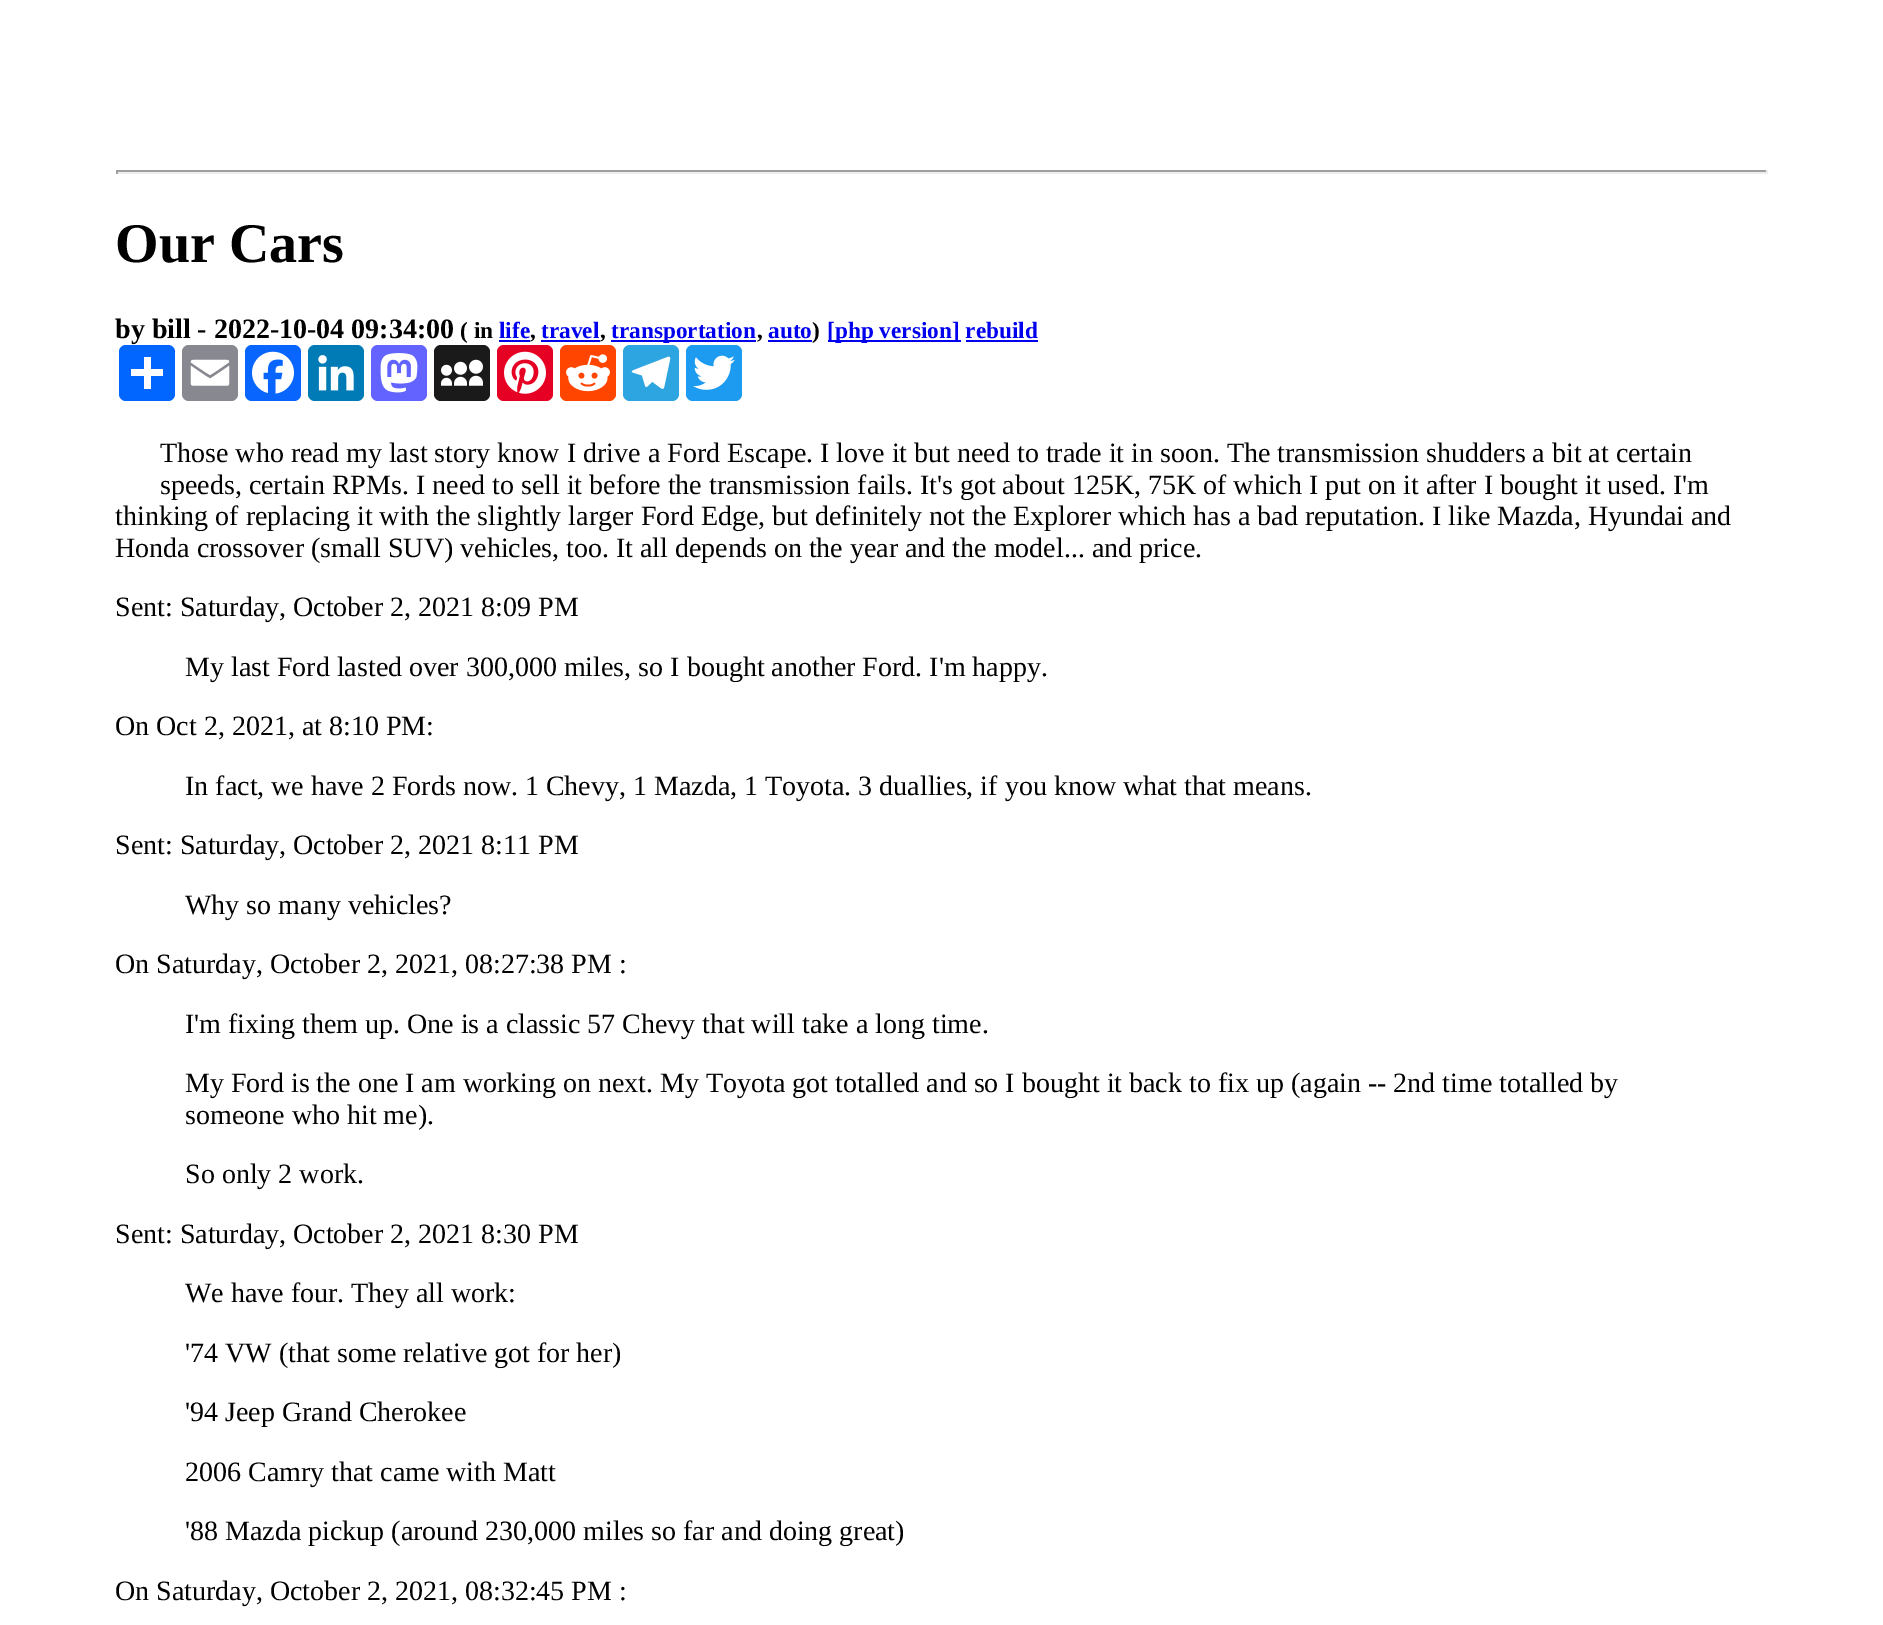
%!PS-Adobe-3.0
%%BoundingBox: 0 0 1883 1625
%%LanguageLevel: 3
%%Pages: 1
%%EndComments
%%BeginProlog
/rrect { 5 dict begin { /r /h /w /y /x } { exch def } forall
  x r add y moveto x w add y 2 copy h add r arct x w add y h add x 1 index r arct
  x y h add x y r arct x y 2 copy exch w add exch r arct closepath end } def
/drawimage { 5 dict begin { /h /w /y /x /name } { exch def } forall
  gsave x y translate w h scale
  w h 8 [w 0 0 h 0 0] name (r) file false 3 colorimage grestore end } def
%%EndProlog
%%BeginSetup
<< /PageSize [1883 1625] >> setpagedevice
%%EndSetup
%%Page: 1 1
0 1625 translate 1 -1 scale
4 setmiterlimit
1 setgray
0 0 1883 1625 rectfill
0.624 setgray
116 170 1652 2 rectfill
0.933 setgray
1766 170 2 4 rectfill
116 172 1652 2 rectfill
0.624 setgray
116 170 2 4 rectfill
0 0 0.933 setrgbcolor
499 340 31 2 rectfill
541 340 59 2 rectfill
611 340 145 2 rectfill
768 340 44 2 rectfill
828 340 133 2 rectfill
966 340 72 2 rectfill
0.004 0.4 1 setrgbcolor
119 345 56 56 7 rrect fill
1 setgray
144 357 7 32 rectfill
131 369 32 7 rectfill
0.533 0.537 0.565 setrgbcolor
182 345 56 56 7 rrect fill
(images/1.raw) 190 359 40 27 drawimage
0.031 0.4 1 setrgbcolor
245 345 56 56 7 rrect fill
(images/2.raw) 252 351 42 43 drawimage
0 0.482 0.71 setrgbcolor
308 345 56 56 7 rrect fill
(images/3.raw) 318 355 36 36 drawimage
0.388 0.392 1 setrgbcolor
371 345 56 56 7 rrect fill
(images/4.raw) 380 353 38 40 drawimage
0.102 setgray
434 345 56 56 7 rrect fill
(images/5.raw) 441 359 42 27 drawimage
0.902 0 0.137 setrgbcolor
497 345 56 56 7 rrect fill
(images/6.raw) 504 351 42 43 drawimage
1 0.271 0 setrgbcolor
560 345 56 56 7 rrect fill
(images/7.raw) 566 354 44 38 drawimage
0.173 0.647 0.878 setrgbcolor
623 345 56 56 7 rrect fill
(images/8.raw) 631 356 40 33 drawimage
0.114 0.608 0.941 setrgbcolor
686 345 56 56 7 rrect fill
(images/9.raw) 693 355 42 35 drawimage
/LiberationSerif-Bold [56 0 0 -56 0 0] selectfont
0 setgray
115 262 moveto (Our Cars) show
/LiberationSerif-Bold [28 0 0 -28 0 0] selectfont
115 338 moveto (by bill - 2022-10-04 09:34:00) show
/LiberationSerif-Bold [23.25 0 0 -23.25 0 0] selectfont
460 338 moveto (\( in) show
0 0 0.933 setrgbcolor
499 338 moveto (life) show
0 setgray
530 338 moveto (,) show
0 0 0.933 setrgbcolor
541 338 moveto (travel) show
0 setgray
600 338 moveto (,) show
0 0 0.933 setrgbcolor
611 338 moveto (transportation) show
0 setgray
757 338 moveto (,) show
0 0 0.933 setrgbcolor
768 338 moveto (auto) show
0 setgray
812 338 moveto (\)) show
0 0 0.933 setrgbcolor
827 338 moveto ([php version] rebuild) show
/LiberationSerif-Regular [28 0 0 -28 0 0] selectfont
0 setgray
160 462 moveto (Those who read my last story know I drive a Ford Escape. I love it but need to trade it in soon. The transmission shudders a bit at certain) show
160 494 moveto (speeds, certain RPMs. I need to sell it before the transmission fails. It's got about 125K, 75K of which I put on it after I bought it used. I'm) show
115 525 moveto (thinking of replacing it with the slightly larger Ford Edge, but definitely not the Explorer which has a bad reputation. I like Mazda, Hyundai and) show
115 557 moveto (Honda crossover \(small SUV\) vehicles, too. It all depends on the year and the model... and price.) show
115 616 moveto (Sent: Saturday, October 2, 2021 8:09 PM) show
185 676 moveto (My last Ford lasted over 300,000 miles, so I bought another Ford. I'm happy.) show
115 735 moveto (On Oct 2, 2021, at 8:10 PM:) show
185 795 moveto (In fact, we have 2 Fords now. 1 Chevy, 1 Mazda, 1 Toyota. 3 duallies, if you know what that means.) show
115 854 moveto (Sent: Saturday, October 2, 2021 8:11 PM) show
185 914 moveto (Why so many vehicles?) show
115 973 moveto (On Saturday, October 2, 2021, 08:27:38 PM :) show
185 1033 moveto (I'm fixing them up. One is a classic 57 Chevy that will take a long time.) show
185 1092 moveto (My Ford is the one I am working on next. My Toyota got totalled and so I bought it back to fix up \(again -- 2nd time totalled by) show
185 1124 moveto (someone who hit me\).) show
185 1183 moveto (So only 2 work.) show
115 1243 moveto (Sent: Saturday, October 2, 2021 8:30 PM) show
185 1302 moveto (We have four. They all work:) show
185 1362 moveto ('74 VW \(that some relative got for her\)) show
185 1421 moveto ('94 Jeep Grand Cherokee) show
185 1481 moveto (2006 Camry that came with Matt) show
185 1540 moveto ('88 Mazda pickup \(around 230,000 miles so far and doing great\)) show
115 1600 moveto (On Saturday, October 2, 2021, 08:32:45 PM :) show
showpage
%%EOF
